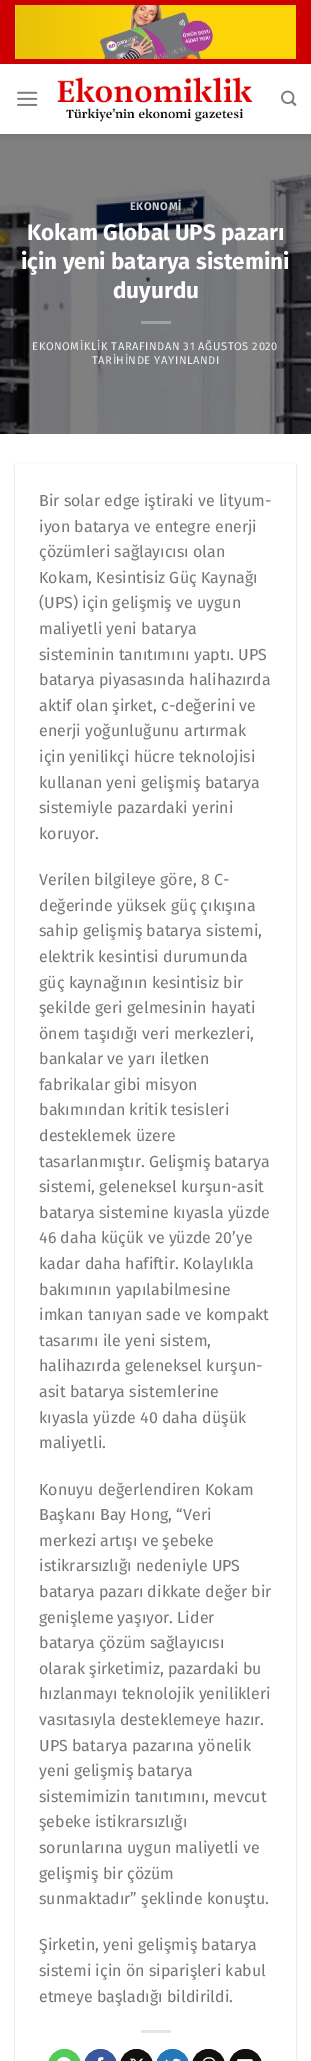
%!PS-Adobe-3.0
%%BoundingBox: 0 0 311 2061
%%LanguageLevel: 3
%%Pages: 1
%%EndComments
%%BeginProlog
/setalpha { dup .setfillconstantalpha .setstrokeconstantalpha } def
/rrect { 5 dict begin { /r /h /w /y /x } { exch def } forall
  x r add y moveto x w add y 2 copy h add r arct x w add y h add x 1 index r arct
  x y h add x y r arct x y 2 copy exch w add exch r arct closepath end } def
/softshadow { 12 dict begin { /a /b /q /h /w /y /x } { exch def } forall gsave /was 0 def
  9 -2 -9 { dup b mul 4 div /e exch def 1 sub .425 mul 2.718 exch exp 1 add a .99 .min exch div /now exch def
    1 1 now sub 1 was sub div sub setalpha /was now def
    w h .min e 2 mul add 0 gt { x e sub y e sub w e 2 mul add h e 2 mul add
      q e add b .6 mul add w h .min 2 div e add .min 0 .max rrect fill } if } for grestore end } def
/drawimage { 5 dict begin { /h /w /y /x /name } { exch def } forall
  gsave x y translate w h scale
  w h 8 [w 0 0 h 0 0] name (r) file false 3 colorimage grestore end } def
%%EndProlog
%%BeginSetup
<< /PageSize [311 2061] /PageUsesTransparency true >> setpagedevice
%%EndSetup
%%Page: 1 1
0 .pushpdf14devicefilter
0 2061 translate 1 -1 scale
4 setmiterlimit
1 setgray
0 0 311 2061 rectfill
(images/5.raw) 0 134 311 300 drawimage
gsave
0 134 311 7 rectclip
0 setgray
1 1 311 134 0 5 0.15 softshadow
grestore
0.8 0 0 setrgbcolor
0 0 311 64 rectfill
(images/1.raw) 15 5 281 54 drawimage
(images/2.raw) 17 91 21 15 drawimage
(images/3.raw) 57 77 196 45 drawimage
(images/4.raw) 281 90 16 16 drawimage
0.627 0.631 0.643 setrgbcolor
141 321 30 3 rectfill
gsave
newpath 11 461 moveto 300 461 lineto 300 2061 lineto 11 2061 lineto closepath 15 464 moveto 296 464 lineto 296 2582 lineto 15 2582 lineto closepath eoclip newpath
0 setgray
15 465 281 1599 0 1 0.24 softshadow
grestore
0.902 setgray
141 2030 30 3 rectfill
0.318 0.796 0.353 setrgbcolor
48.5 2049.5 32 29 16 rrect gsave fill grestore
stroke
(images/6.raw) 57 2057 14 4 drawimage
0.227 0.345 0.616 setrgbcolor
84.5 2049.5 32 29 16 rrect gsave fill grestore
stroke
(images/7.raw) 97 2057 7 4 drawimage
0.067 setgray
120.5 2049.5 32 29 16 rrect gsave fill grestore
stroke
(images/8.raw) 130 2058 14 3 drawimage
0.141 0.471 0.729 setrgbcolor
156.5 2049.5 32 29 16 rrect gsave fill grestore
stroke
(images/9.raw) 165 2058 16 3 drawimage
0.067 setgray
192.5 2049.5 32 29 16 rrect gsave fill grestore
stroke
(images/10.raw) 202 2057 14 4 drawimage
229.5 2049.5 32 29 16 rrect gsave fill grestore
stroke
(images/11.raw) 237 2059 16 2 drawimage
/FiraSans-Bold [11.2 0 0 -11.2 0 0] selectfont
0.808 0.812 0.827 setrgbcolor
130 210 moveto 0.55 0 (EKONOMİ) ashow
/FiraSans-Bold [22.4 0 0 -22.4 0 0] selectfont
1 setgray
27 240 moveto (Kokam Global UPS pazarı) show
21 269 moveto (için yeni batarya sistemini) show
113 298 moveto (duyurdu) show
/FiraSans-Regular [11.2 0 0 -11.2 0 0] selectfont
0.945 setgray
32 350 moveto 0.55 0 (EKONOMİKLİK TARAFINDAN 31 AĞUSTOS 2020) ashow
92 364 moveto 0.55 0 (TARİHİNDE YAYINLANDI) ashow
/FiraSans-Regular [16 0 0 -16 0 0] selectfont
0.467 setgray
39 506 moveto (Bir solar edge iştiraki ve lityum-) show
39 532 moveto (iyon batarya ve entegre enerji) show
39 557 moveto (çözümleri sağlayıcısı olan) show
39 583 moveto (Kokam, Kesintisiz Güç Kaynağı) show
39 608 moveto (\(UPS\) için gelişmiş ve uygun) show
39 634 moveto (maliyetli yeni batarya) show
39 660 moveto (sisteminin tanıtımını yaptı. UPS) show
39 685 moveto (batarya piyasasında halihazırda) show
39 711 moveto (aktif olan şirket, c-değerini ve) show
39 736 moveto (enerji yoğunluğunu artırmak) show
39 762 moveto (için yenilikçi hücre teknolojisi) show
39 788 moveto (kullanan yeni gelişmiş batarya) show
39 813 moveto (sistemiyle pazardaki yerini) show
39 839 moveto (koruyor.) show
39 885 moveto (Verilen bilgileye göre, 8 C-) show
39 911 moveto (değerinde yüksek güç çıkışına) show
39 936 moveto (sahip gelişmiş batarya sistemi,) show
39 962 moveto (elektrik kesintisi durumunda) show
39 988 moveto (güç kaynağının kesintisiz bir) show
39 1013 moveto (şekilde geri gelmesinin hayati) show
39 1039 moveto (önem taşıdığı veri merkezleri,) show
39 1064 moveto (bankalar ve yarı iletken) show
39 1090 moveto (fabrikalar gibi misyon) show
39 1115 moveto (bakımından kritik tesisleri) show
39 1141 moveto (desteklemek üzere) show
39 1167 moveto (tasarlanmıştır. Gelişmiş batarya) show
39 1192 moveto (sistemi, geleneksel kurşun-asit) show
39 1218 moveto (batarya sistemine kıyasla yüzde) show
39 1243 moveto (46 daha küçük ve yüzde 20’ye) show
39 1269 moveto (kadar daha hafiftir. Kolaylıkla) show
39 1295 moveto (bakımının yapılabilmesine) show
39 1320 moveto (imkan tanıyan sade ve kompakt) show
39 1346 moveto (tasarımı ile yeni sistem,) show
39 1371 moveto (halihazırda geleneksel kurşun-) show
39 1397 moveto (asit batarya sistemlerine) show
39 1423 moveto (kıyasla yüzde 40 daha düşük) show
39 1448 moveto (maliyetli.) show
39 1495 moveto (Konuyu değerlendiren Kokam) show
39 1520 moveto (Başkanı Bay Hong, “Veri) show
39 1546 moveto (merkezi artışı ve şebeke) show
39 1571 moveto (istikrarsızlığı nedeniyle UPS) show
39 1597 moveto (batarya pazarı dikkate değer bir) show
39 1623 moveto (genişleme yaşıyor. Lider) show
39 1648 moveto (batarya çözüm sağlayıcısı) show
39 1674 moveto (olarak şirketimiz, pazardaki bu) show
39 1699 moveto (hızlanmayı teknolojik yenilikleri) show
39 1725 moveto (vasıtasıyla desteklemeye hazır.) show
39 1751 moveto (UPS batarya pazarına yönelik) show
39 1776 moveto (yeni gelişmiş batarya) show
39 1802 moveto (sistemimizin tanıtımını, mevcut) show
39 1827 moveto (şebeke istikrarsızlığı) show
39 1853 moveto (sorunlarına uygun maliyetli ve) show
39 1879 moveto (gelişmiş bir çözüm) show
39 1904 moveto (sunmaktadır” şeklinde konuştu.) show
39 1950 moveto (Şirketin, yeni gelişmiş batarya) show
39 1976 moveto (sistemi için ön siparişleri kabul) show
39 2002 moveto (etmeye başladığı bildirildi.) show
.poppdf14devicefilter showpage
%%EOF
